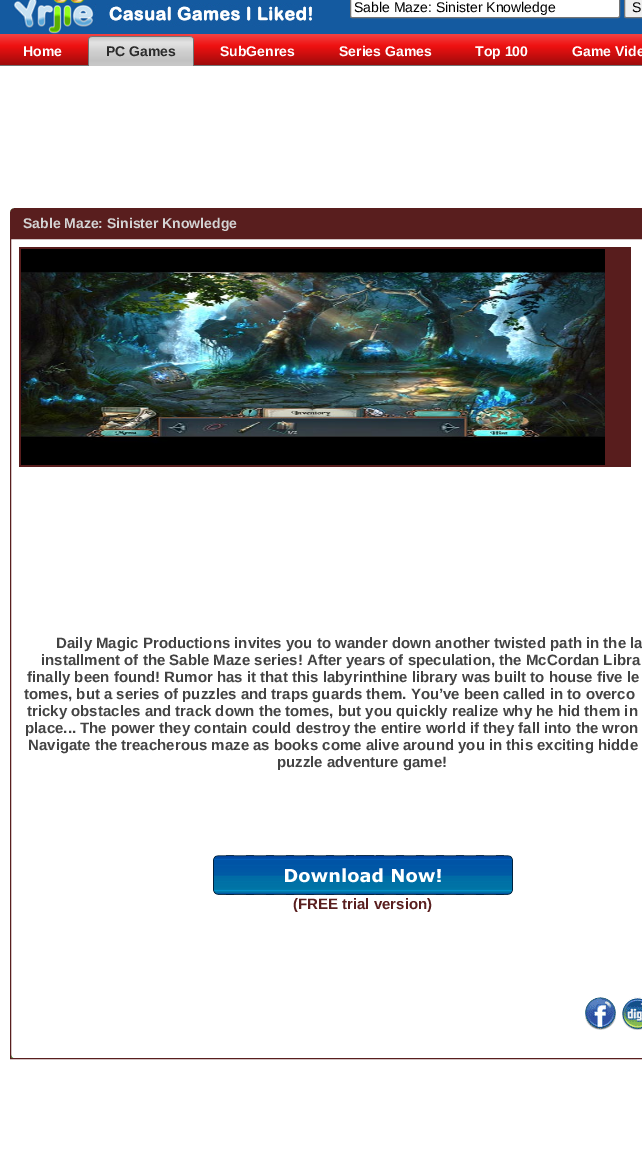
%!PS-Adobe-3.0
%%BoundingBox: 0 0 642 1160
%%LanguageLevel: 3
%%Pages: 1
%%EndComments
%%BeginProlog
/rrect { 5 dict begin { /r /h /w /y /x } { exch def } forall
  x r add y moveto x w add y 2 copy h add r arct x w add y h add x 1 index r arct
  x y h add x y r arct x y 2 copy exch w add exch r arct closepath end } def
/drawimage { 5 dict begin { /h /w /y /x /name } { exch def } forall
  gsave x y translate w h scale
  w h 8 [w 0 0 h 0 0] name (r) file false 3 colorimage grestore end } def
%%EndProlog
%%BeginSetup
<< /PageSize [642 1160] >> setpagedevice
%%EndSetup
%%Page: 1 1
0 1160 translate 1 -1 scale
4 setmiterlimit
1 setgray
0 0 642 1160 rectfill
0.078 0.353 0.627 setrgbcolor
0 0 642 34 rectfill
(images/1.raw) 10 0 321 34 drawimage
1 setgray
350.5 -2.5 269 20 1.5 rrect gsave fill grestore
0.463 setgray
stroke
0.937 setgray
624.5 -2.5 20 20 1.5 rrect gsave fill grestore
0.463 setgray
stroke
(images/2.raw) 0 34 642 32 drawimage
(images/3.raw) 88 36 102 30 drawimage
(images/4.raw) 190 36 4 30 drawimage
(images/5.raw) 10 208 632 30 drawimage
(images/10.raw) 11 1054 4 4 drawimage
0.349 0.118 0.118 setrgbcolor
10.5 238.5 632 820 rectstroke
0.345 0.114 0.114 setrgbcolor
19 247 612 220 rectfill
(images/6.raw) 21 249 584 216 drawimage
(images/7.raw) 213 855 300 40 drawimage
(images/8.raw) 585 997 31 33 drawimage
(images/9.raw) 622 997 20 33 drawimage
/LiberationSans-Regular [14 0 0 -14 0 0] selectfont
0 setgray
354 12 moveto (Sable Maze: Sinister Knowledge) show
632 12 moveto (S) show
/LiberationSans-Bold [14 0 0 -14 0 0] selectfont
1 setgray
23 56 moveto (Home) show
0.169 setgray
106 56 moveto (PC Games) show
1 setgray
220 56 moveto (SubGenres) show
339 56 moveto (Series Games) show
475 56 moveto (Top 100) show
572 56 moveto (Game Vide) show
0.831 setgray
23 228 moveto (Sable Maze: Sinister Knowledge) show
/LiberationSans-Bold [15 0 0 -15 0 0] selectfont
0.263 setgray
56 648 moveto (Daily Magic Productions invites you to wander down another twisted path in the la) show
41 665 moveto (installment of the Sable Maze series! After years of speculation, the McCordan Libra) show
27 682 moveto (finally been found! Rumor has it that this labyrinthine library was built to house five le) show
24 699 moveto (tomes, but a series of puzzles and traps guards them. You’ve been called in to overco) show
27 716 moveto (tricky obstacles and track down the tomes, but you quickly realize why he hid them in) show
25 733 moveto (place... The power they contain could destroy the entire world if they fall into the wron) show
28 750 moveto (Navigate the treacherous maze as books come alive around you in this exciting hidde) show
277 767 moveto (puzzle adventure game!) show
0.349 0.118 0.118 setrgbcolor
293 909 moveto (\(FREE trial version\)) show
showpage
%%EOF
